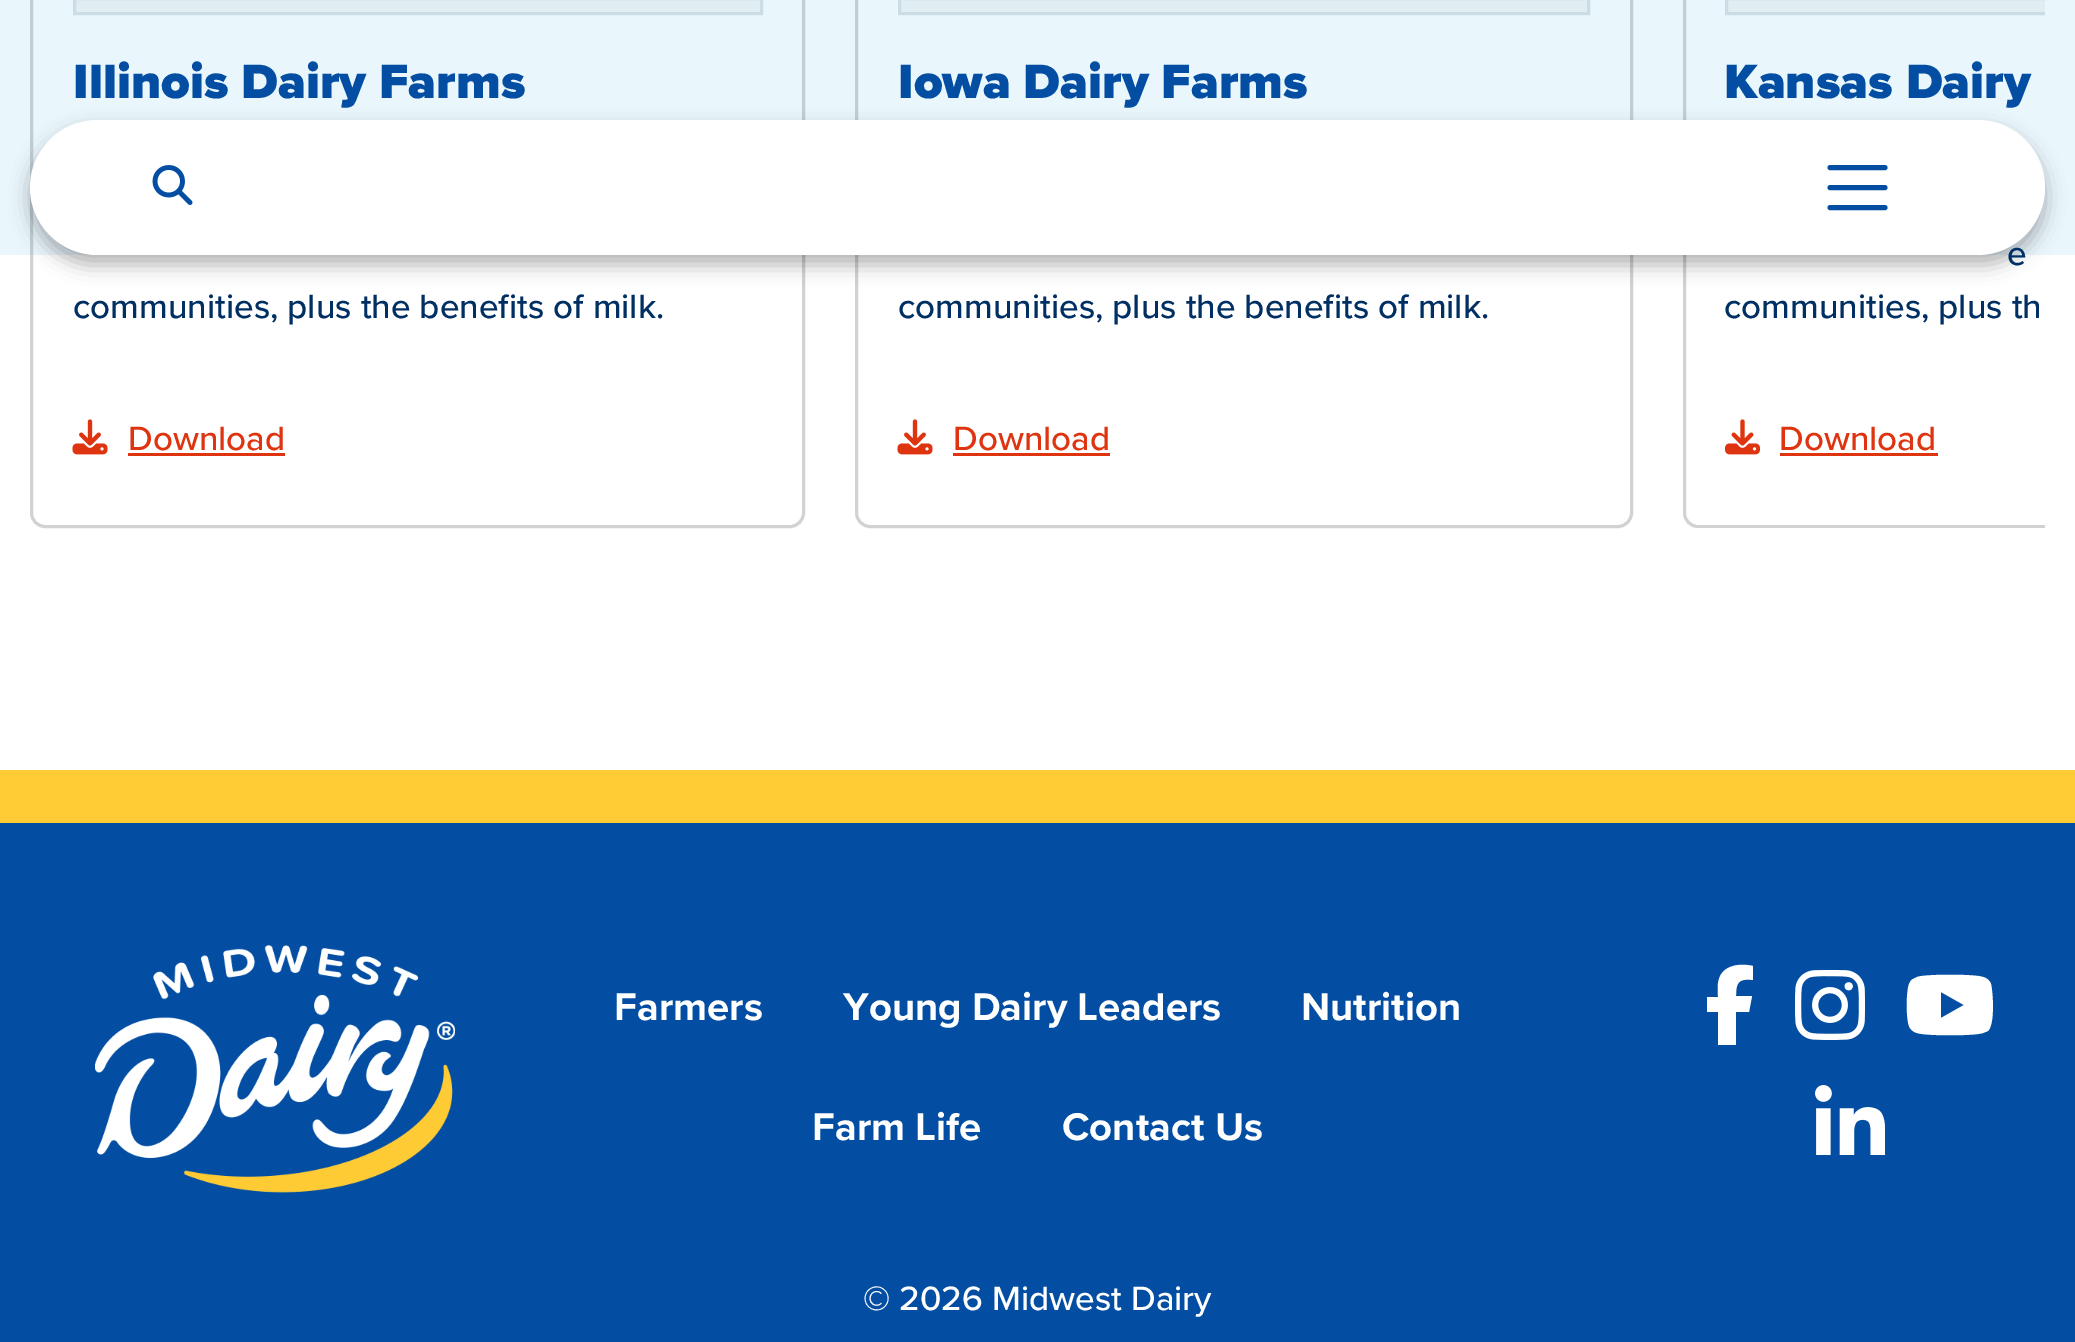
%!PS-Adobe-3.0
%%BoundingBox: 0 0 2075 1342
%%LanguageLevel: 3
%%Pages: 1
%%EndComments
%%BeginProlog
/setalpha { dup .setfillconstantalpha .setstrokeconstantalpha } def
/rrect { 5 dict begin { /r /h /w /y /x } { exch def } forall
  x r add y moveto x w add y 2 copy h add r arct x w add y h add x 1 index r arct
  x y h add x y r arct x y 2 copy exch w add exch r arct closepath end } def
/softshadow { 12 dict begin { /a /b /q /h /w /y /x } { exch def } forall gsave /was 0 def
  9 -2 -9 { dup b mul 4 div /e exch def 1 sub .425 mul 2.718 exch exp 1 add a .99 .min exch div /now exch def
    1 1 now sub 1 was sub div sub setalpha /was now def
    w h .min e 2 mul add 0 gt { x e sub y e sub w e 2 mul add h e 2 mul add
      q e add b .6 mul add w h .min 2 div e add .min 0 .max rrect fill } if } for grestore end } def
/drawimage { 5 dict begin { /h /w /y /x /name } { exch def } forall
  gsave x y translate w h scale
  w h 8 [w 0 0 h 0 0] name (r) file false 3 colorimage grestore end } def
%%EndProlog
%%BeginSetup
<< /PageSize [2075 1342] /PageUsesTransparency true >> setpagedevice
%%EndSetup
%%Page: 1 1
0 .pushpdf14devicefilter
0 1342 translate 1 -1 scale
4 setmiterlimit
1 setgray
0 0 2075 1342 rectfill
0.824 setgray
3 setlinewidth
31.5 -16.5 772 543 13.5 rrect stroke
0.961 0.961 0.957 setrgbcolor
newpath 74.5 -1.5 moveto 761.5 -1.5 lineto 761.5 13.5 lineto 74.5 13.5 lineto closepath gsave fill grestore
0.871 0.886 0.902 setrgbcolor
stroke
0.824 setgray
856.5 -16.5 775 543 13.5 rrect stroke
0.961 0.961 0.957 setrgbcolor
newpath 899.5 -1.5 moveto 1588.5 -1.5 lineto 1588.5 13.5 lineto 899.5 13.5 lineto closepath gsave fill grestore
0.871 0.886 0.902 setrgbcolor
stroke
gsave
30 0 2015 528 rectclip
0.824 setgray
1684.5 -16.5 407 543 13.5 rrect stroke
grestore
0.961 0.961 0.957 setrgbcolor
1728 0 317 12 rectfill
gsave
30 0 2015 528 rectclip
0.871 0.886 0.902 setrgbcolor
1726.5 -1.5 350 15 rectstroke
grestore
0.1 setalpha
0.153 0.667 0.882 setrgbcolor
0 0 2075 255 rectfill
1 setalpha
0 setgray
30 130 2015 135 67.5 10 0.3 softshadow
(images/2.raw) 72 419 36 36 drawimage
0.871 0.204 0.063 setrgbcolor
128 453 157 3 rectfill
(images/2.raw) 897 419 36 36 drawimage
953 453 157 3 rectfill
(images/3.raw) 1725 419 35 36 drawimage
1780 453 158 3 rectfill
0.012 0.306 0.635 setrgbcolor
0 823 2075 519 rectfill
1 0.8 0.208 setrgbcolor
0 770 2075 53 rectfill
(images/4.raw) 95 945 360 248 drawimage
1 setgray
newpath 1718 1012 moveto 1718 1045 lineto 1718 1012 lineto 1718 1045 lineto 1736 1045 lineto 1736 1012 lineto 1749 1012 lineto 1752 996 lineto 1736 996 lineto 1736 983 1738 978 1753 980 curveto 1753 966 lineto 1740 963 1723 965 1719 979 curveto 1717 985 1718 991 1718 997 curveto 1707 997 lineto 1707 1012 lineto closepath fill
(images/5.raw) 1795 970 70 70 drawimage
newpath 1991 984 moveto 1990 981 1987 978 1983 977 curveto 1975 974 1925 974 1917 977 curveto 1913 979 lineto 1911 980 1910 982 1909 984 curveto 1906 993 1906 1018 1909 1026 curveto 1910 1029 1913 1032 1917 1033 curveto 1926 1036 1974 1036 1983 1033 curveto 1988 1031 lineto 1995 1024 1993 993 1991 984 curveto closepath 1941 1018 moveto 1941 992 lineto 1941 1018 lineto 1941 992 lineto 1964 1005 lineto closepath fill
(images/6.raw) 1815 1085 70 70 drawimage
/ProximaNova-Black [50 0 0 -50 0 0] selectfont
0.012 0.306 0.635 setrgbcolor
73 98 moveto (Illinois Dairy Farms) show
/ProximaNova-Medium [35 0 0 -35 0 0] selectfont
0 0.184 0.388 setrgbcolor
73 318 moveto (communities, plus the benefits of milk.) show
0.871 0.204 0.063 setrgbcolor
128 450 moveto (Download) show
/ProximaNova-Black [50 0 0 -50 0 0] selectfont
0.012 0.306 0.635 setrgbcolor
898 98 moveto (Iowa Dairy Farms) show
/ProximaNova-Medium [35 0 0 -35 0 0] selectfont
0 0.184 0.388 setrgbcolor
898 318 moveto (communities, plus the benefits of milk.) show
0.871 0.204 0.063 setrgbcolor
953 450 moveto (Download) show
/ProximaNova-Black [50 0 0 -50 0 0] selectfont
0.012 0.306 0.635 setrgbcolor
1724 98 moveto (Kansas Dairy) show
/ProximaNova-Medium [35 0 0 -35 0 0] selectfont
0 0.184 0.388 setrgbcolor
2007 265 moveto (e) show
1 setgray
30 120 2015 135 67.5 rrect fill
0.012 0.306 0.635 setrgbcolor
5 setlinewidth
1 setlinecap
newpath 1830 167.5 moveto 1885 167.5 lineto 1830 187.5 moveto 1885 187.5 lineto 1830 207.5 moveto 1885 207.5 lineto stroke
(images/1.raw) 152 165 41 40 drawimage
0 0.184 0.388 setrgbcolor
1724 318 moveto (communities, plus th) show
0.871 0.204 0.063 setrgbcolor
1779 450 moveto (Download) show
/ProximaNova-Bold [40 0 0 -40 0 0] selectfont
1 setgray
614 1020 moveto (Farmers) show
843 1020 moveto (Young Dairy Leaders) show
1301 1020 moveto (Nutrition) show
812 1140 moveto (Farm Life) show
1062 1140 moveto (Contact Us) show
/ProximaNova-Medium [35 0 0 -35 0 0] selectfont
863 1310 moveto (© 2026 Midwest Dairy) show
.poppdf14devicefilter showpage
%%EOF
